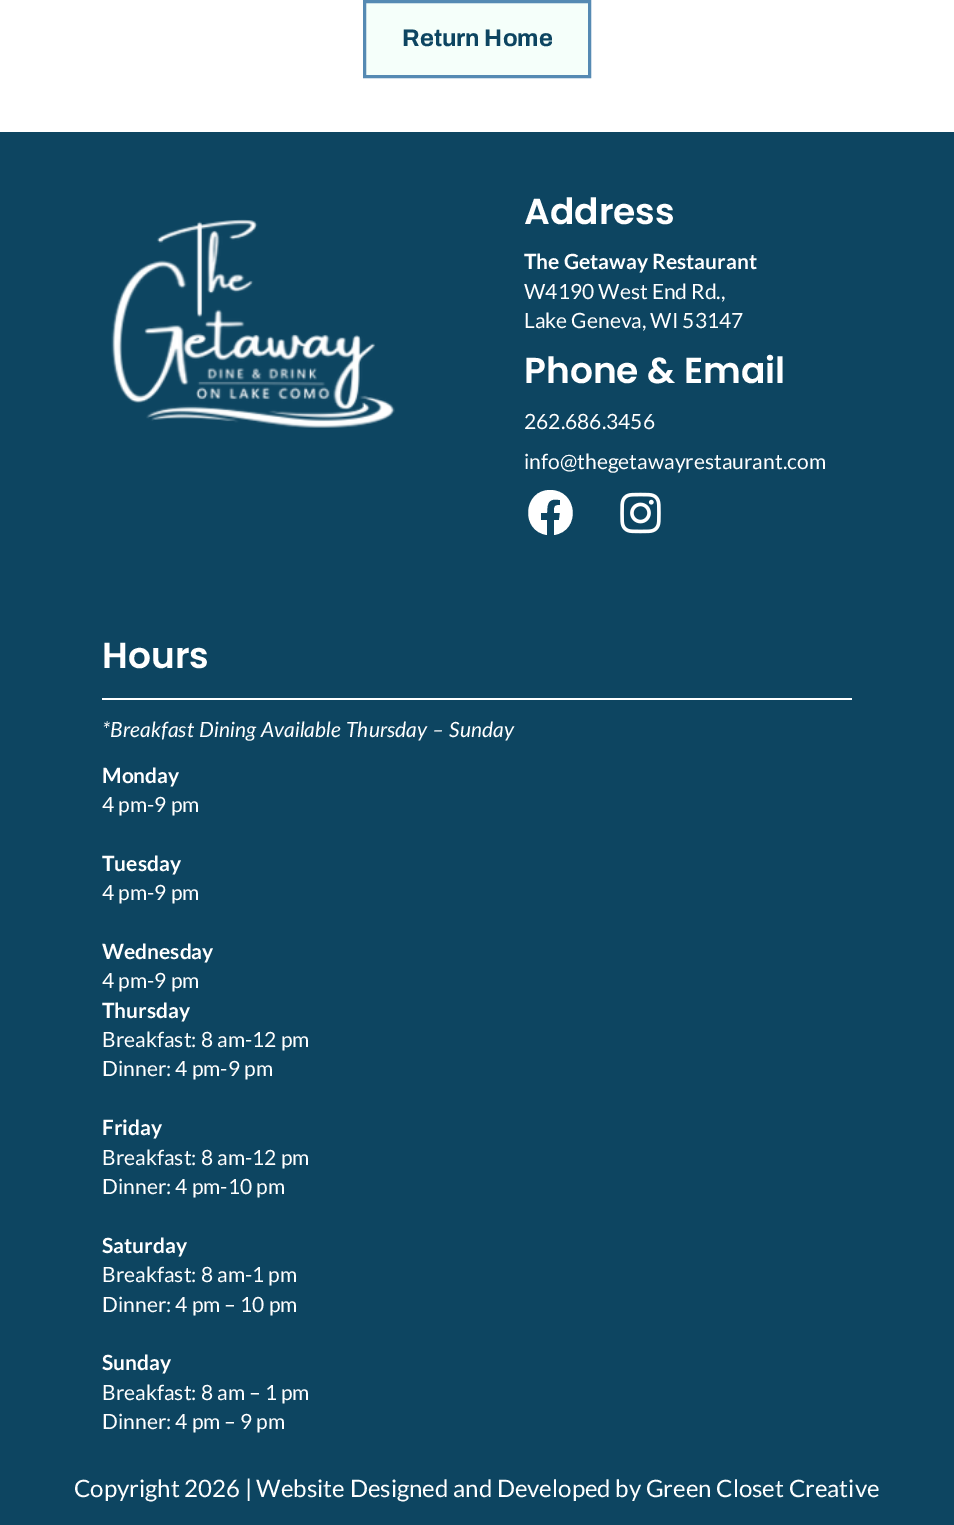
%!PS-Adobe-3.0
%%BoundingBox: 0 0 954 1525
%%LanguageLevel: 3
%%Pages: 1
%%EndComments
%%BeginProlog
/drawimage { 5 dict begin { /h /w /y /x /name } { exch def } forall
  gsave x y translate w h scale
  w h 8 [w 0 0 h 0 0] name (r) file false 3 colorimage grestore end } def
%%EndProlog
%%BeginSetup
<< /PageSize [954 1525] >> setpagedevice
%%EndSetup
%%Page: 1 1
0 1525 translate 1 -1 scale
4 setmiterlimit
1 setgray
0 0 954 1525 rectfill
0.961 1 0.98 setrgbcolor
newpath 364.5 1.5 moveto 589.5 1.5 lineto 589.5 76.5 lineto 364.5 76.5 lineto closepath gsave fill grestore
0.333 0.541 0.702 setrgbcolor
3 setlinewidth
stroke
0.051 0.271 0.38 setrgbcolor
0 132 954 1393 rectfill
(images/1.raw) 111 219 284 209 drawimage
1 setgray
newpath 550 490 moveto 523 490 520 531 547 535 curveto 547 520 lineto 541 520 lineto 541 513 lineto 547 513 lineto 547 502 549 498 560 500 curveto 560 505 lineto 554 505 554 507 554 513 curveto 560 513 lineto 559 520 lineto 554 520 lineto 554 535 lineto 581 531 578 490 550 490 curveto closepath fill
(images/2.raw) 620 492 41 42 drawimage
102 698 750 2 rectfill
/Archivo-Bold [24 0 0 -24 0 0] selectfont
0.051 0.271 0.38 setrgbcolor
402 46 moveto (Return Home) show
/Poppins-SemiBold [36 0 0 -36 0 0] selectfont
1 setgray
524 224 moveto (Address) show
/Lato-Bold [21 0 0 -21 0 0] selectfont
524 269 moveto (The Getaway Restaurant) show
/Lato-Regular [21 0 0 -21 0 0] selectfont
524 299 moveto (W4190 West End Rd.,) show
524 328 moveto (Lake Geneva, WI 53147) show
/Poppins-SemiBold [36 0 0 -36 0 0] selectfont
524 383 moveto (Phone & Email) show
/Lato-Regular [21 0 0 -21 0 0] selectfont
524 429 moveto (262.686.3456) show
524 469 moveto (info@thegetawayrestaurant.com) show
/Poppins-SemiBold [36 0 0 -36 0 0] selectfont
102 668 moveto (Hours) show
/Lato-Italic [21 0 0 -21 0 0] selectfont
102 737 moveto (*Breakfast Dining Available Thursday – Sunday) show
/Lato-Bold [21 0 0 -21 0 0] selectfont
102 783 moveto (Monday) show
/Lato-Regular [21 0 0 -21 0 0] selectfont
102 812 moveto (4 pm-9 pm) show
/Lato-Bold [21 0 0 -21 0 0] selectfont
102 871 moveto (Tuesday) show
/Lato-Regular [21 0 0 -21 0 0] selectfont
102 900 moveto (4 pm-9 pm) show
/Lato-Bold [21 0 0 -21 0 0] selectfont
102 959 moveto (Wednesday) show
/Lato-Regular [21 0 0 -21 0 0] selectfont
102 988 moveto (4 pm-9 pm) show
/Lato-Bold [21 0 0 -21 0 0] selectfont
102 1018 moveto (Thursday) show
/Lato-Regular [21 0 0 -21 0 0] selectfont
102 1047 moveto (Breakfast: 8 am-12 pm) show
102 1076 moveto (Dinner: 4 pm-9 pm) show
/Lato-Bold [21 0 0 -21 0 0] selectfont
102 1135 moveto (Friday) show
/Lato-Regular [21 0 0 -21 0 0] selectfont
102 1165 moveto (Breakfast: 8 am-12 pm) show
102 1194 moveto (Dinner: 4 pm-10 pm) show
/Lato-Bold [21 0 0 -21 0 0] selectfont
102 1253 moveto (Saturday) show
/Lato-Regular [21 0 0 -21 0 0] selectfont
102 1282 moveto (Breakfast: 8 am-1 pm) show
102 1312 moveto (Dinner: 4 pm – 10 pm) show
/Lato-Bold [21 0 0 -21 0 0] selectfont
102 1370 moveto (Sunday) show
/Lato-Regular [21 0 0 -21 0 0] selectfont
102 1400 moveto (Breakfast: 8 am – 1 pm) show
102 1429 moveto (Dinner: 4 pm – 9 pm) show
/Lato-Regular [24 0 0 -24 0 0] selectfont
74 1497 moveto (Copyright 2026 | Website Designed and Developed by Green Closet Creative) show
showpage
%%EOF
